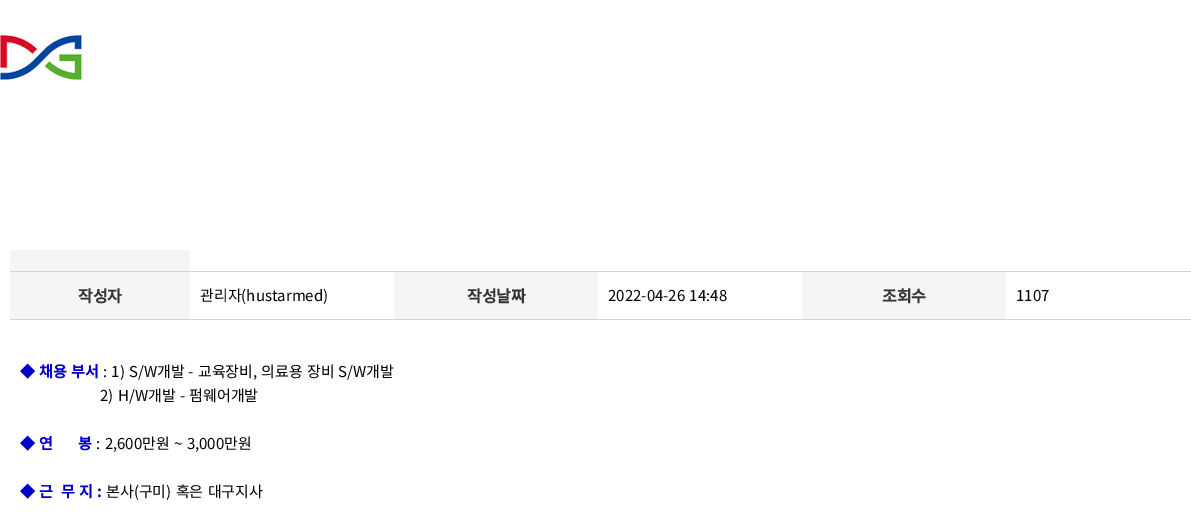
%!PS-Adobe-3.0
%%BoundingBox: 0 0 1191 518
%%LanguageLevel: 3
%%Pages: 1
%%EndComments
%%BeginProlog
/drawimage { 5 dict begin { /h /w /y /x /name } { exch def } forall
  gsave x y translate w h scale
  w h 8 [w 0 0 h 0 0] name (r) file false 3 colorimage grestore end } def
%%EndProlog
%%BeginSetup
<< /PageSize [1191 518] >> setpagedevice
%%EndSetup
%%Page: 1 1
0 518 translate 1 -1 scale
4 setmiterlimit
1 setgray
0 0 1191 518 rectfill
(images/1.raw) 0 34 82 46 drawimage
0.957 0.961 0.961 setrgbcolor
10 250 180 21 rectfill
10 272 180 47 rectfill
394 272 204 47 rectfill
802 272 204 47 rectfill
0.82 setgray
10 271 1181 1 rectfill
10 319 1181 1 rectfill
/NotoSansKR-Bold [16 0 0 -16 0 0] selectfont
0.2 setgray
78 302 moveto (작성자) show
/NotoSansKR-Regular [15 0 0 -15 0 0] selectfont
0 setgray
200 301 moveto (관리자\(hustarmed\)) show
/NotoSansKR-Bold [16 0 0 -16 0 0] selectfont
0.2 setgray
467 302 moveto (작성날짜) show
/NotoSansKR-Regular [15 0 0 -15 0 0] selectfont
0 setgray
608 301 moveto 1 0 32 (2022-04-26 14:48) widthshow
/NotoSansKR-Bold [16 0 0 -16 0 0] selectfont
0.2 setgray
882 302 moveto (조회수) show
/NotoSansKR-Regular [15 0 0 -15 0 0] selectfont
0 setgray
1016 301 moveto (1107) show
/NotoSansKR-Bold [15 0 0 -15 0 0] selectfont
0 0 0.8 setrgbcolor
20 377 moveto 1 0 32 (◆ 채용 부서) widthshow
/NotoSansKR-Regular [15 0 0 -15 0 0] selectfont
0 setgray
103 377 moveto 0.75 0 32 (: 1\) S/W개발 - 교육장비, 의료용 장비 S/W개발) widthshow
100 401 moveto 1 0 32 (2\) H/W개발 - 펌웨어개발) widthshow
/NotoSansKR-Bold [15 0 0 -15 0 0] selectfont
0 0 0.8 setrgbcolor
20 449 moveto 0.75 0 32 (◆ 연      봉) widthshow
/NotoSansKR-Regular [15 0 0 -15 0 0] selectfont
0 setgray
96 449 moveto 1 0 32 (: 2,600만원 ~ 3,000만원) widthshow
/NotoSansKR-Bold [15 0 0 -15 0 0] selectfont
0 0 0.8 setrgbcolor
20 497 moveto 0.75 0 32 (◆ 근  무 지 :) widthshow
/NotoSansKR-Regular [15 0 0 -15 0 0] selectfont
0 setgray
106 497 moveto 1 0 32 (본사\(구미\) 혹은 대구지사) widthshow
showpage
%%EOF
